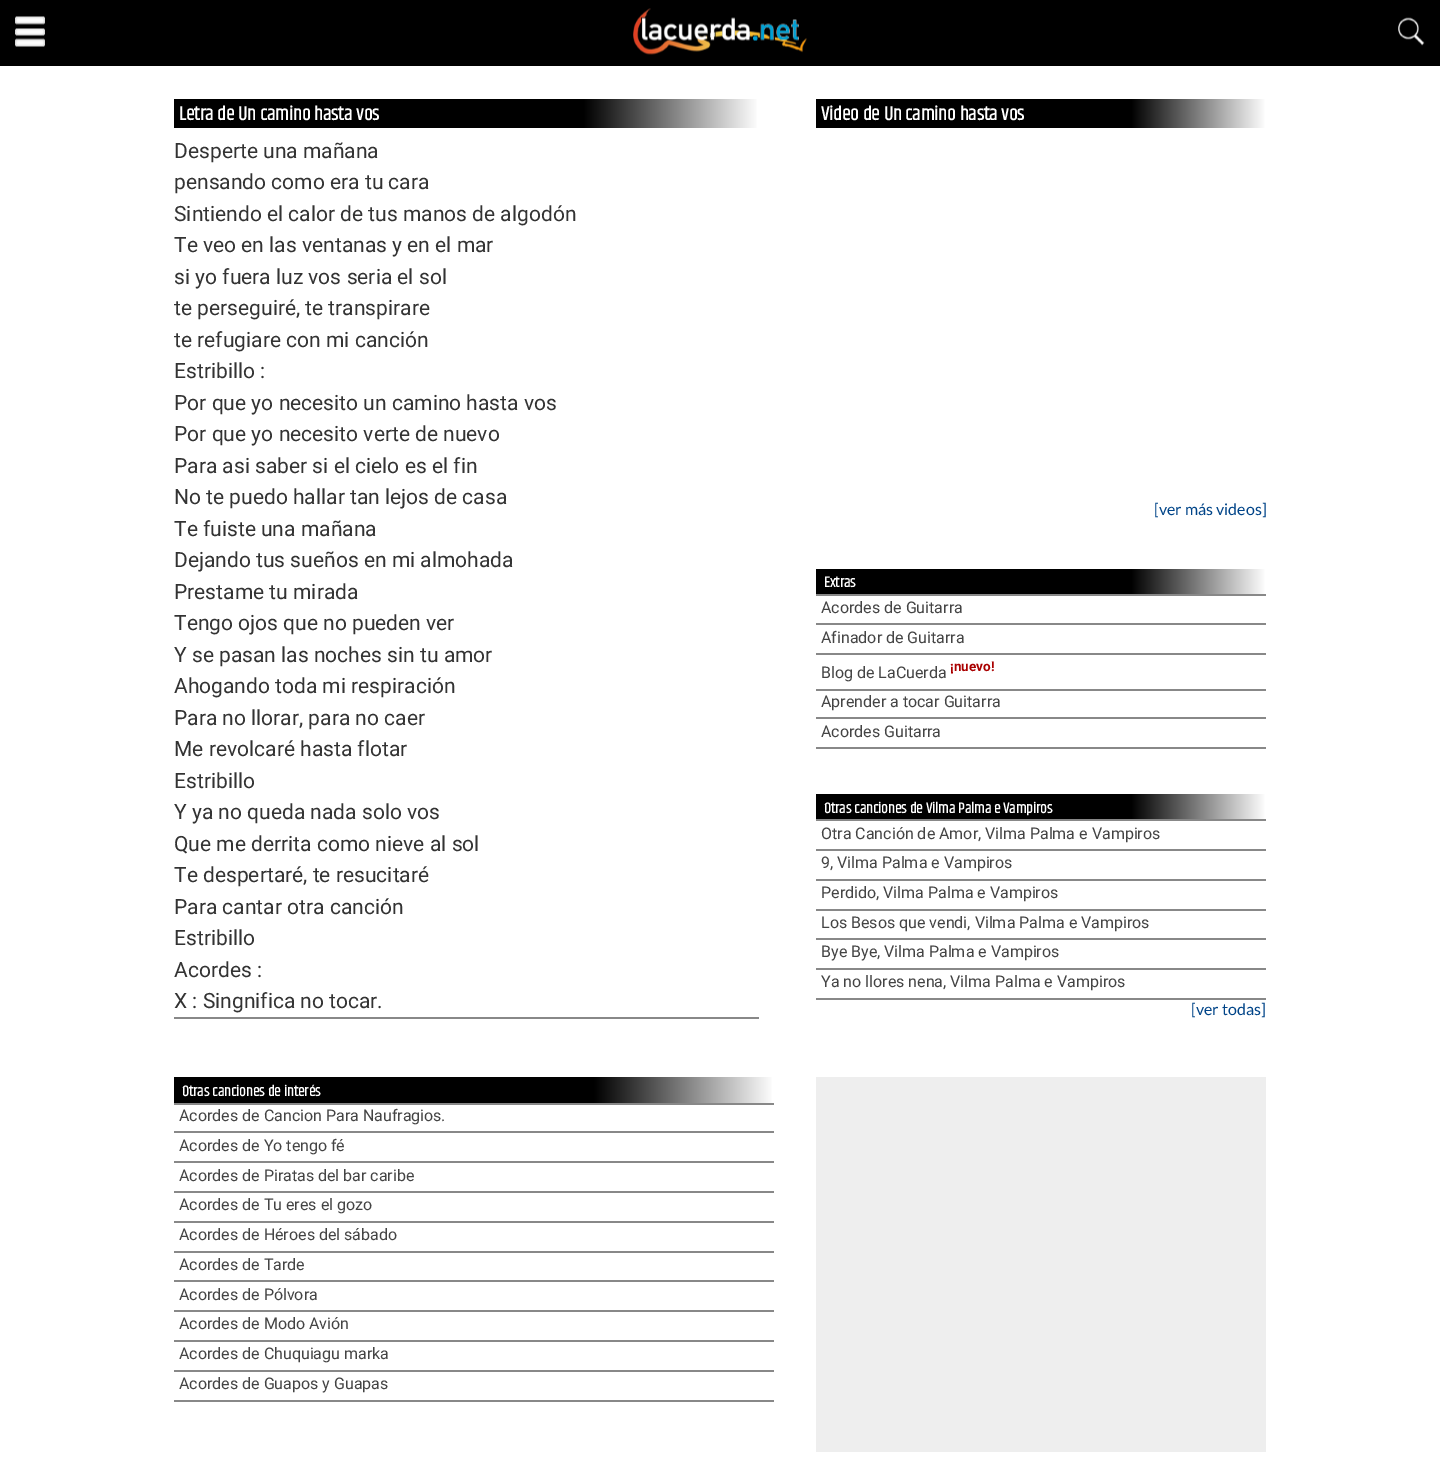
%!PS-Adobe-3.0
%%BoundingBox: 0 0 1440 1480
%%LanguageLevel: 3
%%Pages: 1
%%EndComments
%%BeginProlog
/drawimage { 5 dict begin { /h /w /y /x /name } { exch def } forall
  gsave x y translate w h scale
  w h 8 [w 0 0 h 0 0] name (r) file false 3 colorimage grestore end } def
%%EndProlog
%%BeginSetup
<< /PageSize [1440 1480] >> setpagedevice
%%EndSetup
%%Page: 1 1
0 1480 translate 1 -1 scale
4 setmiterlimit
1 setgray
0 0 1440 1480 rectfill
0 setgray
0 0 1440 66 rectfill
(images/1.raw) 15 16 30 31 drawimage
(images/2.raw) 633 8 174 47 drawimage
(images/3.raw) 1398 17 27 29 drawimage
gsave newpath 174 99 moveto 757 99 lineto 757 128 lineto 174 128 lineto closepath clip newpath
<< /ShadingType 2 /ColorSpace /DeviceRGB /Coords [174 113 759 113] /Extend [true true] /Function << /FunctionType 3 /Domain [0 1] /Functions [<< /FunctionType 2 /Domain [0 1] /C0 [0 0 0] /C1 [0 0 0] /N 1 >> << /FunctionType 2 /Domain [0 1] /C0 [0 0 0] /C1 [1 1 1] /N 1 >>] /Bounds [0.7] /Encode [0 1 0 1] >> >> shfill grestore
0.533 setgray
174 1017 585 2 rectfill
gsave newpath 816 99 moveto 1265 99 lineto 1265 128 lineto 816 128 lineto closepath clip newpath
<< /ShadingType 2 /ColorSpace /DeviceRGB /Coords [816 113 1266 113] /Extend [true true] /Function << /FunctionType 3 /Domain [0 1] /Functions [<< /FunctionType 2 /Domain [0 1] /C0 [0 0 0] /C1 [0 0 0] /N 1 >> << /FunctionType 2 /Domain [0 1] /C0 [0 0 0] /C1 [1 1 1] /N 1 >>] /Bounds [0.7] /Encode [0 1 0 1] >> >> shfill grestore
gsave newpath 816 569 moveto 1265 569 lineto 1265 594 lineto 816 594 lineto closepath clip newpath
<< /ShadingType 2 /ColorSpace /DeviceRGB /Coords [816 524 1266 524] /Extend [true true] /Function << /FunctionType 3 /Domain [0 1] /Functions [<< /FunctionType 2 /Domain [0 1] /C0 [0 0 0] /C1 [0 0 0] /N 1 >> << /FunctionType 2 /Domain [0 1] /C0 [0 0 0] /C1 [1 1 1] /N 1 >>] /Bounds [0.7] /Encode [0 1 0 1] >> >> shfill grestore
816 594 450 2 rectfill
816 623 450 2 rectfill
816 653 450 2 rectfill
816 689 450 2 rectfill
816 717 450 2 rectfill
816 747 450 2 rectfill
gsave newpath 816 794 moveto 1265 794 lineto 1265 819 lineto 816 819 lineto closepath clip newpath
<< /ShadingType 2 /ColorSpace /DeviceRGB /Coords [816 749 1266 749] /Extend [true true] /Function << /FunctionType 3 /Domain [0 1] /Functions [<< /FunctionType 2 /Domain [0 1] /C0 [0 0 0] /C1 [0 0 0] /N 1 >> << /FunctionType 2 /Domain [0 1] /C0 [0 0 0] /C1 [1 1 1] /N 1 >>] /Bounds [0.7] /Encode [0 1 0 1] >> >> shfill grestore
816 819 450 2 rectfill
816 849 450 2 rectfill
816 879 450 2 rectfill
816 909 450 2 rectfill
816 938 450 2 rectfill
816 968 450 2 rectfill
816 998 450 2 rectfill
gsave newpath 174 1077 moveto 772 1077 lineto 772 1103 lineto 174 1103 lineto closepath clip newpath
<< /ShadingType 2 /ColorSpace /DeviceRGB /Coords [174 1033 774 1033] /Extend [true true] /Function << /FunctionType 3 /Domain [0 1] /Functions [<< /FunctionType 2 /Domain [0 1] /C0 [0 0 0] /C1 [0 0 0] /N 1 >> << /FunctionType 2 /Domain [0 1] /C0 [0 0 0] /C1 [1 1 1] /N 1 >>] /Bounds [0.7] /Encode [0 1 0 1] >> >> shfill grestore
174 1103 600 2 rectfill
174 1131 600 2 rectfill
174 1161 600 2 rectfill
174 1191 600 2 rectfill
174 1221 600 2 rectfill
174 1251 600 2 rectfill
174 1280 600 2 rectfill
174 1310 600 2 rectfill
174 1340 600 2 rectfill
174 1370 600 2 rectfill
174 1400 600 2 rectfill
0.933 setgray
816 1077 450 375 rectfill
/Khand-Bold [19.5 0 0 -19.5 0 0] selectfont
1 setgray
179 120 moveto (Letra de Un camino hasta vos) show
/Roboto-Regular [21 0 0 -21 0 0] selectfont
0.2 setgray
174 158 moveto (Desperte una mañana) show
174 189 moveto (pensando como era tu cara) show
174 221 moveto (Sintiendo el calor de tus manos de algodón) show
174 252 moveto (Te veo en las ventanas y en el mar) show
174 284 moveto (si yo fuera luz vos seria el sol) show
174 315 moveto (te perseguiré, te transpirare) show
174 347 moveto (te refugiare con mi canción) show
174 378 moveto (Estribillo :) show
174 410 moveto (Por que yo necesito un camino hasta vos) show
174 441 moveto (Por que yo necesito verte de nuevo) show
174 473 moveto (Para asi saber si el cielo es el fin) show
174 504 moveto (No te puedo hallar tan lejos de casa) show
174 536 moveto (Te fuiste una mañana) show
174 567 moveto (Dejando tus sueños en mi almohada) show
174 599 moveto (Prestame tu mirada) show
174 630 moveto (Tengo ojos que no pueden ver) show
174 662 moveto (Y se pasan las noches sin tu amor) show
174 693 moveto (Ahogando toda mi respiración) show
174 725 moveto (Para no llorar, para no caer) show
174 756 moveto (Me revolcaré hasta flotar) show
174 788 moveto (Estribillo) show
174 819 moveto (Y ya no queda nada solo vos) show
174 851 moveto (Que me derrita como nieve al sol) show
174 882 moveto (Te despertaré, te resucitaré) show
174 914 moveto (Para cantar otra canción) show
174 945 moveto (Estribillo) show
174 977 moveto (Acordes :) show
174 1008 moveto (X : Singnifica no tocar.) show
/Khand-Bold [19.5 0 0 -19.5 0 0] selectfont
1 setgray
821 120 moveto (Video de Un camino hasta vos) show
/Lato-Regular [16 0 0 -16 0 0] selectfont
0 0.267 0.533 setrgbcolor
1154 515 moveto ([ver más videos]) show
/Khand-Bold [15 0 0 -15 0 0] selectfont
1 setgray
824 587 moveto (Extras) show
/Roboto-Regular [16 0 0 -16 0 0] selectfont
0.267 setgray
821 613 moveto (Acordes de Guitarra) show
821 643 moveto (Afinador de Guitarra) show
821 678 moveto (Blog de LaCuerda) show
/Roboto-Bold [13.5 0 0 -13.5 0 0] selectfont
0.667 0 0 setrgbcolor
950 671 moveto (¡nuevo!) show
/Roboto-Regular [16 0 0 -16 0 0] selectfont
0.267 setgray
821 707 moveto (Aprender a tocar Guitarra) show
821 737 moveto (Acordes Guitarra) show
/Khand-Bold [15 0 0 -15 0 0] selectfont
1 setgray
824 813 moveto (Otras canciones de Vilma Palma e Vampiros) show
/Roboto-Regular [16 0 0 -16 0 0] selectfont
0.267 setgray
821 839 moveto (Otra Canción de Amor, Vilma Palma e Vampiros) show
821 868 moveto (9, Vilma Palma e Vampiros) show
821 898 moveto (Perdido, Vilma Palma e Vampiros) show
821 928 moveto (Los Besos que vendi, Vilma Palma e Vampiros) show
821 957 moveto (Bye Bye, Vilma Palma e Vampiros) show
821 987 moveto (Ya no llores nena, Vilma Palma e Vampiros) show
/Lato-Regular [16 0 0 -16 0 0] selectfont
0 0.267 0.533 setrgbcolor
1191 1015 moveto ([ver todas]) show
/Khand-Bold [15 0 0 -15 0 0] selectfont
1 setgray
182 1096 moveto (Otras canciones de interés) show
/Roboto-Regular [16 0 0 -16 0 0] selectfont
0.267 setgray
179 1121 moveto (Acordes de Cancion Para Naufragios.) show
179 1151 moveto (Acordes de Yo tengo fé) show
179 1181 moveto (Acordes de Piratas del bar caribe) show
179 1210 moveto (Acordes de Tu eres el gozo) show
179 1240 moveto (Acordes de Héroes del sábado) show
179 1270 moveto (Acordes de Tarde) show
179 1300 moveto (Acordes de Pólvora) show
179 1329 moveto (Acordes de Modo Avión) show
179 1359 moveto (Acordes de Chuquiagu marka) show
179 1389 moveto (Acordes de Guapos y Guapas) show
showpage
%%EOF
